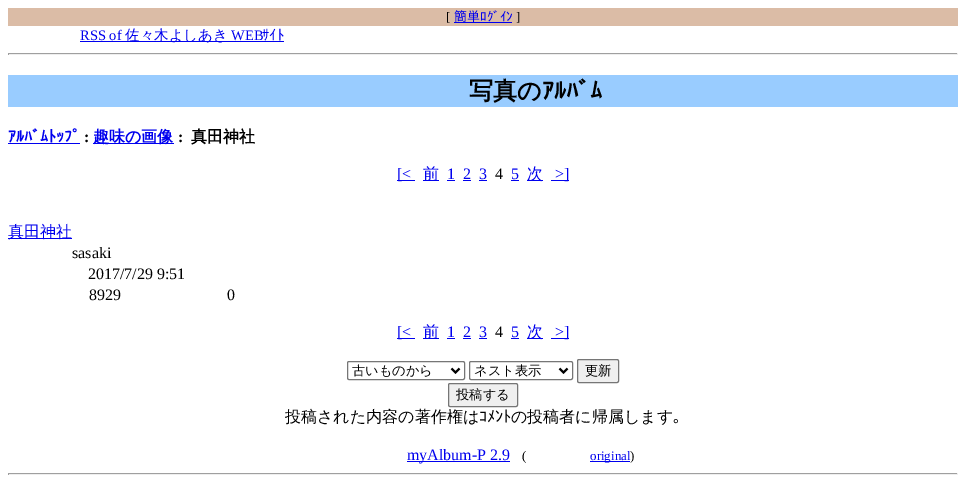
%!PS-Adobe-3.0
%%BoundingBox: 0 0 966 477
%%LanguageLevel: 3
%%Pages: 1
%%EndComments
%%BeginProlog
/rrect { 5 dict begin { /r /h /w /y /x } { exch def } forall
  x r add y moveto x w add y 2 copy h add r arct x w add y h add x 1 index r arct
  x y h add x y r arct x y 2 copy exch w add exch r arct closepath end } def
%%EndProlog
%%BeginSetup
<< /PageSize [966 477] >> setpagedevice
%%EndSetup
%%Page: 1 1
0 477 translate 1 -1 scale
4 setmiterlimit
1 setgray
0 0 966 477 rectfill
0.859 0.737 0.651 setrgbcolor
8 8 950 18 rectfill
0 0 0.933 setrgbcolor
454 22 58 1 rectfill
80 41 204 1 rectfill
0.624 setgray
8 53 950 1 rectfill
0.933 setgray
957 53 1 2 rectfill
8 54 950 1 rectfill
0.624 setgray
8 53 1 2 rectfill
0.6 0.8 1 setrgbcolor
8 75 950 32 rectfill
0 0 0.933 setrgbcolor
8 143 72 1 rectfill
93 143 81 1 rectfill
397 180 18 1 rectfill
423 180 16 1 rectfill
447 180 8 1 rectfill
463 180 8 1 rectfill
479 180 8 1 rectfill
511 180 8 1 rectfill
527 180 16 1 rectfill
551 180 18 1 rectfill
8 238 64 1 rectfill
397 338 18 1 rectfill
423 338 16 1 rectfill
447 338 8 1 rectfill
463 338 8 1 rectfill
479 338 8 1 rectfill
511 338 8 1 rectfill
527 338 16 1 rectfill
551 338 18 1 rectfill
0.463 setgray
347.5 361.5 117 18 1.5 rrect stroke
0 setgray
2 setlinewidth
newpath 451.5 368.5 moveto 455.5 372.5 lineto 459.5 368.5 lineto stroke
0.463 setgray
1 setlinewidth
469.5 361.5 103 18 1.5 rrect stroke
0 setgray
2 setlinewidth
newpath 559.5 368.5 moveto 563.5 372.5 lineto 567.5 368.5 lineto stroke
0.937 setgray
577.5 359.5 41 23 1.5 rrect gsave fill grestore
0.463 setgray
1 setlinewidth
stroke
0.937 setgray
448.5 383.5 69 23 1.5 rrect gsave fill grestore
0.463 setgray
stroke
0 0 0.933 setrgbcolor
407 461 103 1 rectfill
590 461 40 1 rectfill
0.624 setgray
8 473 950 1 rectfill
0.933 setgray
957 473 1 2 rectfill
8 474 950 1 rectfill
0.624 setgray
8 473 1 2 rectfill
/LiberationSerif-Regular [13 0 0 -13 0 0] selectfont
0 setgray
446 21 moveto ([) show
/IPAGothic-Regular [13 0 0 -13 0 0] selectfont
0 0 0.933 setrgbcolor
454 21 moveto (簡単ﾛｸﾞｲﾝ) show
/LiberationSerif-Regular [13 0 0 -13 0 0] selectfont
0 setgray
516 21 moveto (]) show
/LiberationSerif-Regular [14.5 0 0 -14.5 0 0] selectfont
0 0 0.933 setrgbcolor
80 40 moveto (RSS of) show
/WenQuanYiZenHei-Medium [14.5 0 0 -14.5 0 0] selectfont
125 40 moveto (佐々木よしあき) show
/LiberationSerif-Regular [14.5 0 0 -14.5 0 0] selectfont
231 40 moveto (WEB) show
/IPAGothic-Regular [14.5 0 0 -14.5 0 0] selectfont
262 40 moveto (ｻｲﾄ) show
/WenQuanYiZenHei-Bold [24 0 0 -24 0 0] selectfont
0 setgray
469 99 moveto (写真の) show
/IPAGothic-Bold [24 0 0 -24 0 0] selectfont
542 99 moveto (ｱﾙﾊﾞﾑ) show
/IPAGothic-Bold [16 0 0 -16 0 0] selectfont
0 0 0.933 setrgbcolor
8 142 moveto (ｱﾙﾊﾞﾑﾄｯﾌﾟ) show
/LiberationSerif-Bold [16 0 0 -16 0 0] selectfont
0 setgray
84 142 moveto (:) show
/WenQuanYiZenHei-Bold [16 0 0 -16 0 0] selectfont
0 0 0.933 setrgbcolor
93 142 moveto (趣味の画像) show
/LiberationSerif-Bold [16 0 0 -16 0 0] selectfont
0 setgray
178 142 moveto (:) show
/WenQuanYiZenHei-Bold [16 0 0 -16 0 0] selectfont
191 142 moveto (真田神社) show
/LiberationSerif-Regular [16 0 0 -16 0 0] selectfont
0 0 0.933 setrgbcolor
397 179 moveto ([<) show
/WenQuanYiZenHei-Medium [16 0 0 -16 0 0] selectfont
423 179 moveto (前) show
/LiberationSerif-Regular [16 0 0 -16 0 0] selectfont
447 179 moveto (1) show
463 179 moveto (2) show
479 179 moveto (3) show
0 setgray
495 179 moveto (4) show
0 0 0.933 setrgbcolor
511 179 moveto (5) show
/WenQuanYiZenHei-Medium [16 0 0 -16 0 0] selectfont
527 179 moveto (次) show
/LiberationSerif-Regular [16 0 0 -16 0 0] selectfont
555 179 moveto (>]) show
/WenQuanYiZenHei-Medium [16 0 0 -16 0 0] selectfont
8 237 moveto (真田神社) show
/LiberationSerif-Regular [16 0 0 -16 0 0] selectfont
0 setgray
72 258 moveto (sasaki) show
88 279 moveto (2017/7/29 9:51) show
89 300 moveto (8929) show
227 300 moveto (0) show
0 0 0.933 setrgbcolor
397 337 moveto ([<) show
/WenQuanYiZenHei-Medium [16 0 0 -16 0 0] selectfont
423 337 moveto (前) show
/LiberationSerif-Regular [16 0 0 -16 0 0] selectfont
447 337 moveto (1) show
463 337 moveto (2) show
479 337 moveto (3) show
0 setgray
495 337 moveto (4) show
0 0 0.933 setrgbcolor
511 337 moveto (5) show
/WenQuanYiZenHei-Medium [16 0 0 -16 0 0] selectfont
527 337 moveto (次) show
/LiberationSerif-Regular [16 0 0 -16 0 0] selectfont
555 337 moveto (>]) show
/WenQuanYiZenHei-Medium [13.25 0 0 -13.25 0 0] selectfont
0 setgray
352 375 moveto (古いものから) show
474 375 moveto (ネスト表示) show
585 375 moveto (更新) show
456 399 moveto (投稿する) show
/WenQuanYiZenHei-Medium [16 0 0 -16 0 0] selectfont
285 422 moveto (投稿された内容の著作権は) show
/IPAGothic-Regular [16 0 0 -16 0 0] selectfont
479 422 moveto (ｺﾒﾝﾄ) show
/WenQuanYiZenHei-Medium [16 0 0 -16 0 0] selectfont
511 422 moveto (の投稿者に帰属します) show
/IPAGothic-Regular [16 0 0 -16 0 0] selectfont
673 422 moveto (｡) show
/LiberationSerif-Regular [16 0 0 -16 0 0] selectfont
0 0 0.933 setrgbcolor
407 460 moveto (myAlbum-P 2.9) show
/LiberationSerif-Regular [13 0 0 -13 0 0] selectfont
0 setgray
522 460 moveto (\() show
0 0 0.933 setrgbcolor
590 460 moveto (original) show
0 setgray
630 460 moveto (\)) show
showpage
%%EOF
